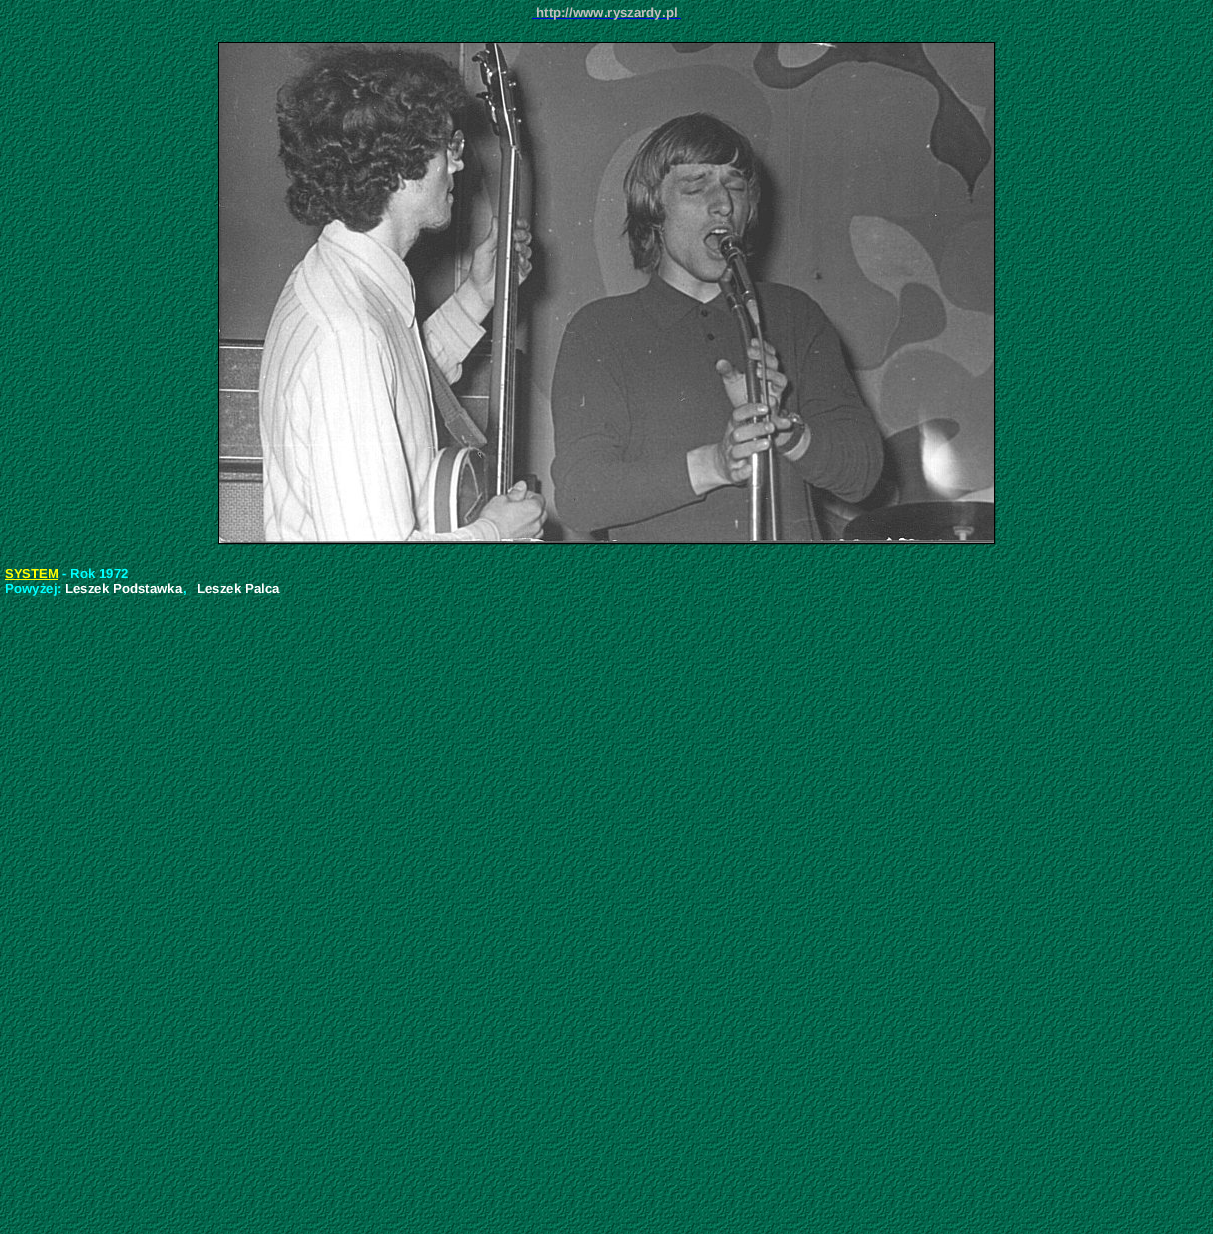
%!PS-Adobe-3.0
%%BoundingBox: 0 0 1213 1234
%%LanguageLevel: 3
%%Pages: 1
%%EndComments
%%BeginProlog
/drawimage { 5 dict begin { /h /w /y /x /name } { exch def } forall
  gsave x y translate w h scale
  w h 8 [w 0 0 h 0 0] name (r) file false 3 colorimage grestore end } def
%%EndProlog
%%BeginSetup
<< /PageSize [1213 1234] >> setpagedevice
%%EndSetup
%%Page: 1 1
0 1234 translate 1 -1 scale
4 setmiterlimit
1 setgray
0 0 1213 1234 rectfill
(images/1.raw) 0 0 1213 1234 drawimage
0 0 0.933 setrgbcolor
532 18 149 1 rectfill
0 setgray
218.5 42.5 776 501 rectstroke
(images/2.raw) 219 43 775 500 drawimage
1 1 0 setrgbcolor
5 579 53 1 rectfill
/LiberationSans-Bold [13.25 0 0 -13.25 0 0] selectfont
0.753 setgray
536 17 moveto (http://www.ryszardy.pl) show
/LiberationSans-Bold [13 0 0 -13 0 0] selectfont
1 1 0 setrgbcolor
5 578 moveto (SYSTEM) show
/LiberationSans-Bold [13.25 0 0 -13.25 0 0] selectfont
0 1 1 setrgbcolor
62 578 moveto (- Rok 1972) show
5 593 moveto (Powyżej:) show
1 setgray
65 593 moveto (Leszek Podstawka) show
0 1 1 setrgbcolor
183 593 moveto (,) show
1 setgray
197 593 moveto (Leszek Palca) show
showpage
%%EOF
